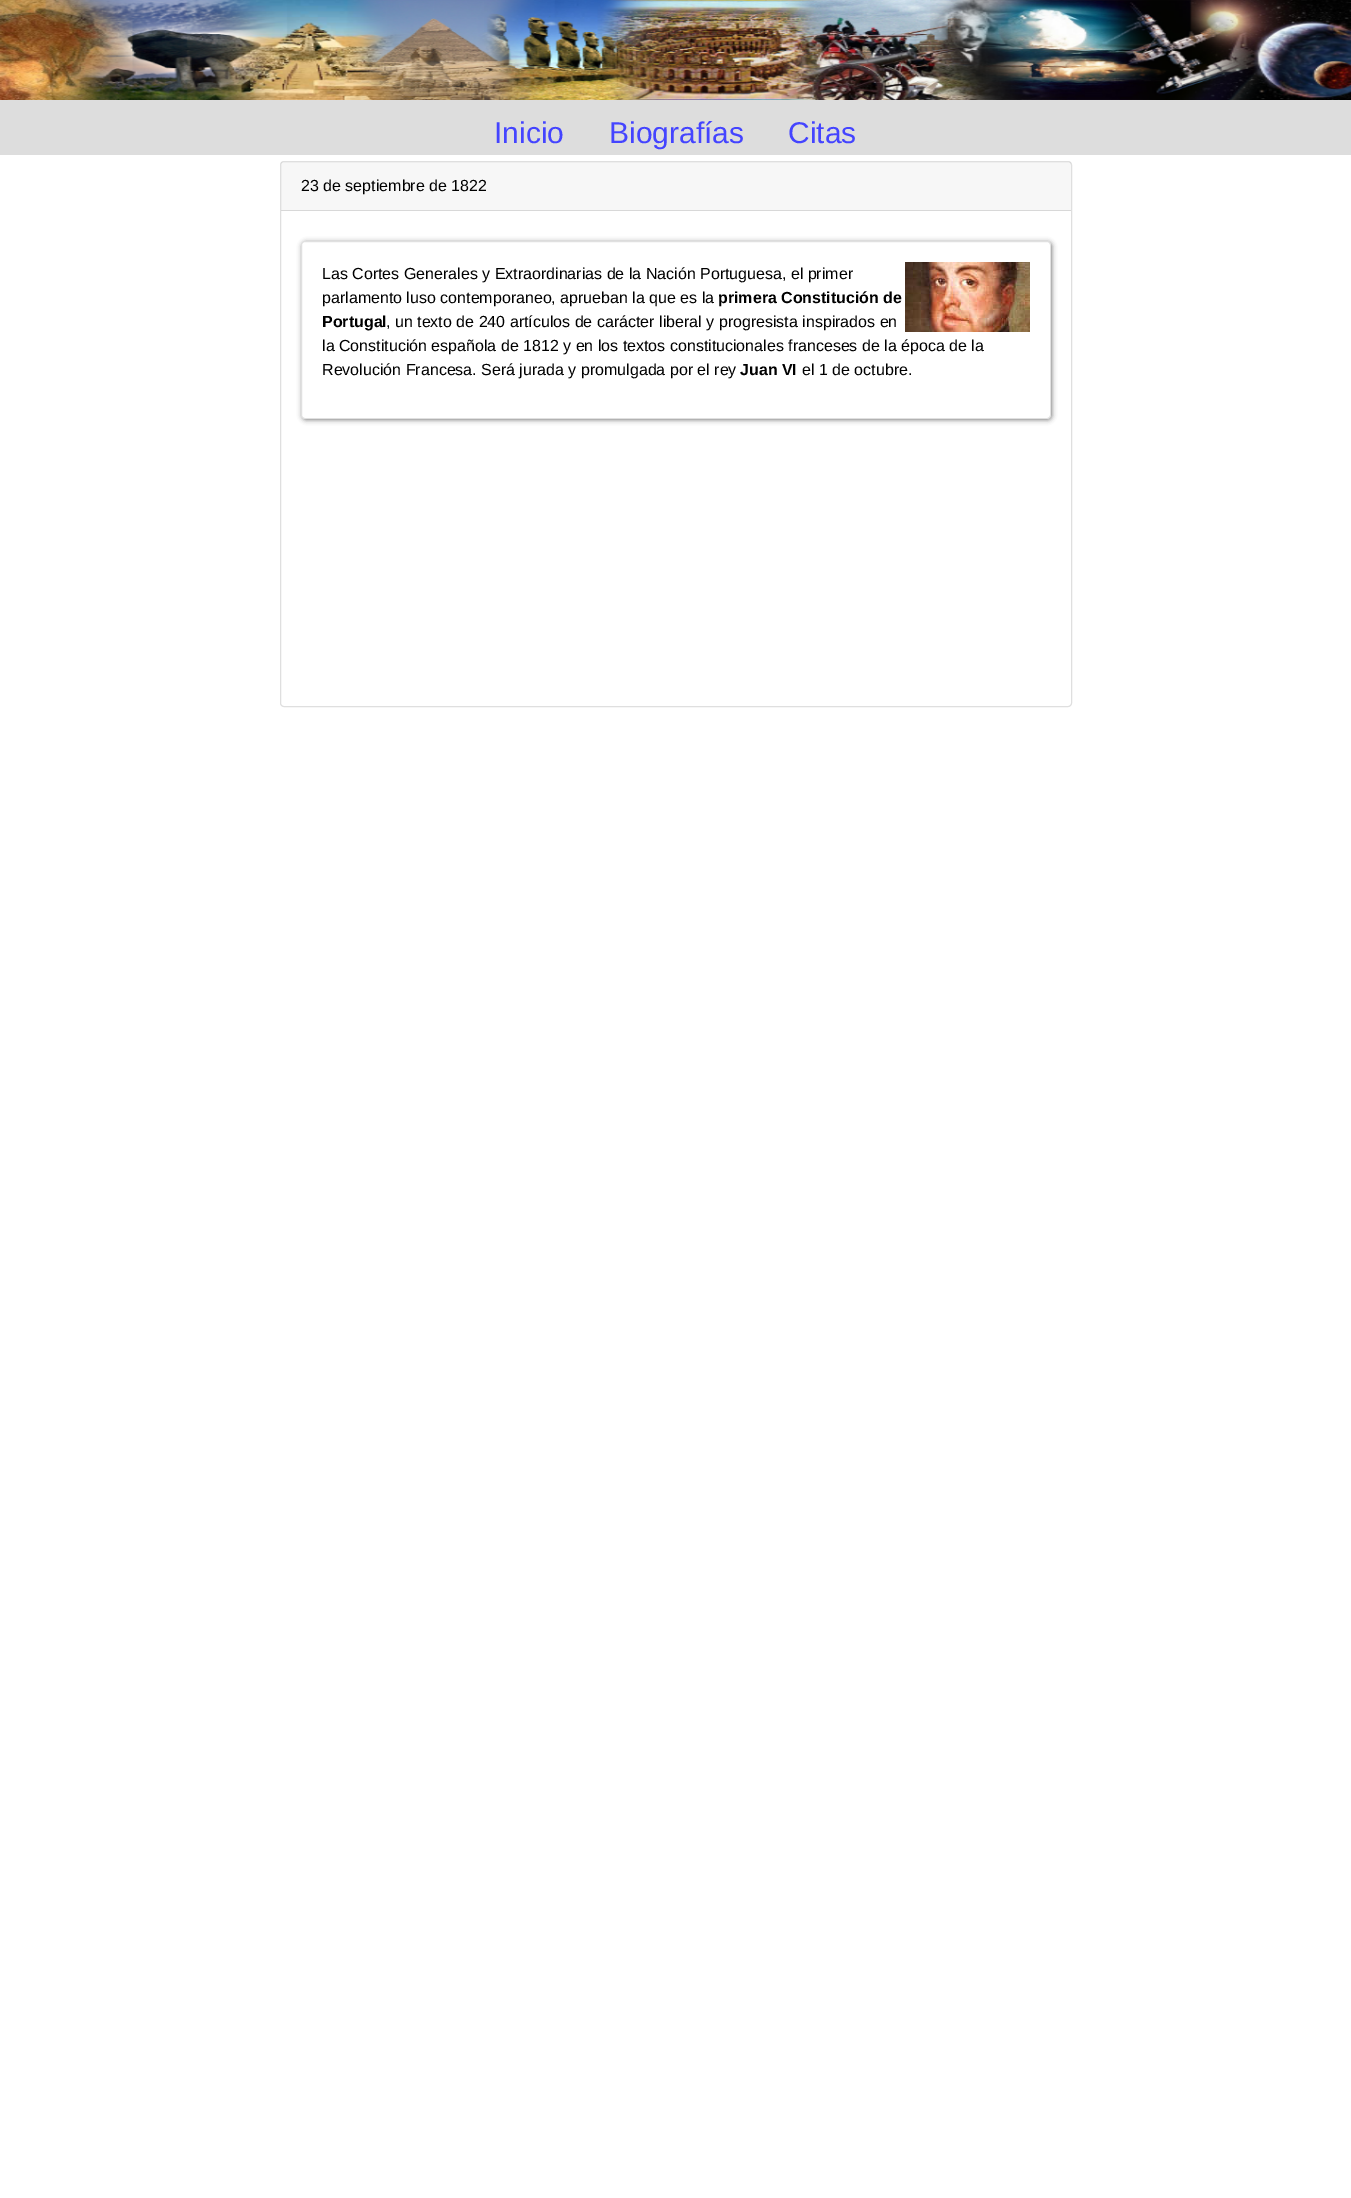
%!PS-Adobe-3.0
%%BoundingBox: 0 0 1351 2198
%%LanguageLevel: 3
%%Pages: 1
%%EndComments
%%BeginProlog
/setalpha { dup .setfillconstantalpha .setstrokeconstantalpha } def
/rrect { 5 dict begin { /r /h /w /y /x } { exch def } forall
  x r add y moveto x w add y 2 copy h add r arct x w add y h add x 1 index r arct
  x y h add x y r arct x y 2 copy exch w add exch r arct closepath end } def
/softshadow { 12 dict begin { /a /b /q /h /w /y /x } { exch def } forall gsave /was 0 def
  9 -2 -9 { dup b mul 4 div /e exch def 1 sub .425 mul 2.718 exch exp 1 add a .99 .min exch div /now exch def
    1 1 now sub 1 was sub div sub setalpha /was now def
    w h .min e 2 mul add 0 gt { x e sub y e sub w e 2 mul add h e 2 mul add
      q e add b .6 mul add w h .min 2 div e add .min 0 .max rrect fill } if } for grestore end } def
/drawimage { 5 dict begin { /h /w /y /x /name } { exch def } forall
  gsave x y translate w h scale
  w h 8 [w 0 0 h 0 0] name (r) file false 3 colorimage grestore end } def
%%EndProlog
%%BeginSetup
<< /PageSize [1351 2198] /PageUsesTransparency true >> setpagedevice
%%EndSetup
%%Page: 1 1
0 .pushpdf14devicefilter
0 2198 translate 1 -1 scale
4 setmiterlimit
1 setgray
0 0 1351 2198 rectfill
(images/1.raw) 0 0 1351 100 drawimage
0.867 setgray
0 100 1351 55 rectfill
0.875 setgray
280.5 161.5 791 545 3.5 rrect stroke
0.03 setalpha
0 setgray
281 162 790 48 rectfill
1 setalpha
0.847 setgray
281 210 790 1 rectfill
0.533 setgray
302 242 750 178 4 2.5 1 softshadow
1 setgray
301 241 750 178 4 rrect fill
0.12 setalpha
0 setgray
301.5 241.5 749 177 3.5 rrect stroke
1 setalpha
(images/2.raw) 905 262 125 70 drawimage
/LiberationSans-Regular [30 0 0 -30 0 0] selectfont
0.267 0.267 1 setrgbcolor
494 143 moveto (Inicio) show
609 143 moveto (Biografías) show
788 143 moveto (Citas) show
/LiberationSans-Regular [16 0 0 -16 0 0] selectfont
0 setgray
301 191 moveto (23 de septiembre de 1822) show
322 279 moveto (Las Cortes Generales y Extraordinarias de la Nación Portuguesa, el primer) show
322 303 moveto (parlamento luso contemporaneo, aprueban la que es la) show
/LiberationSans-Bold [16 0 0 -16 0 0] selectfont
718 303 moveto (primera Constitución de) show
322 327 moveto (Portugal) show
/LiberationSans-Regular [16 0 0 -16 0 0] selectfont
386 327 moveto (, un texto de 240 artículos de carácter liberal y progresista inspirados en) show
322 351 moveto (la Constitución española de 1812 y en los textos constitucionales franceses de la época de la) show
322 375 moveto (Revolución Francesa. Será jurada y promulgada por el rey) show
/LiberationSans-Bold [16 0 0 -16 0 0] selectfont
740 375 moveto (Juan VI) show
/LiberationSans-Regular [16 0 0 -16 0 0] selectfont
802 375 moveto (el 1 de octubre.) show
.poppdf14devicefilter showpage
%%EOF
